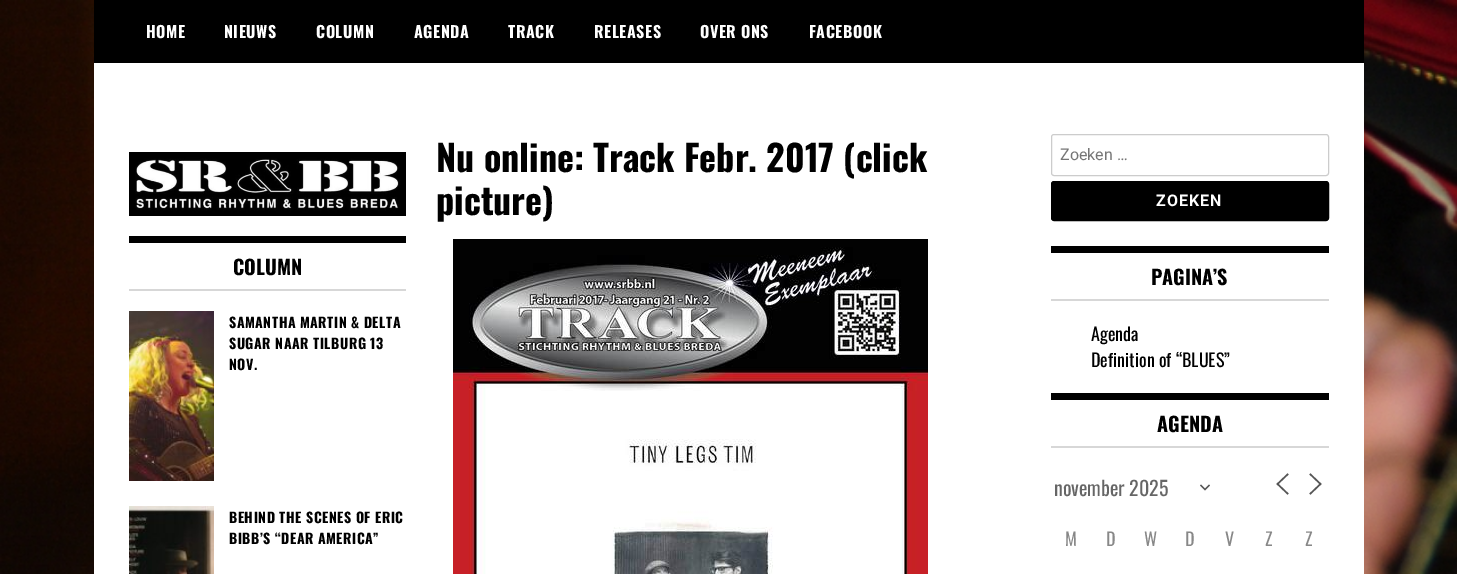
%!PS-Adobe-3.0
%%BoundingBox: 0 0 1457 574
%%LanguageLevel: 3
%%Pages: 1
%%EndComments
%%BeginProlog
/rrect { 5 dict begin { /r /h /w /y /x } { exch def } forall
  x r add y moveto x w add y 2 copy h add r arct x w add y h add x 1 index r arct
  x y h add x y r arct x y 2 copy exch w add exch r arct closepath end } def
/drawimage { 5 dict begin { /h /w /y /x /name } { exch def } forall
  gsave x y translate w h scale
  w h 8 [w 0 0 h 0 0] name (r) file false 3 colorimage grestore end } def
%%EndProlog
%%BeginSetup
<< /PageSize [1457 574] >> setpagedevice
%%EndSetup
%%Page: 1 1
0 574 translate 1 -1 scale
4 setmiterlimit
1 setgray
0 0 1457 574 rectfill
(images/1.raw) 0 0 1457 574 drawimage
94 63 1270 511 rectfill
0 setgray
94 0 1270 63 rectfill
(images/2.raw) 129 152 277 64 drawimage
129 236 277 7 rectfill
0.843 setgray
129 289 277 2 rectfill
(images/3.raw) 129 311 85 170 drawimage
(images/4.raw) 129 506 85 68 drawimage
(images/5.raw) 453 239 475 335 drawimage
0.8 setgray
1051.5 134.5 277 41 2.5 rrect stroke
0 setgray
1051.5 181.5 277 39 2.5 rrect gsave fill grestore
stroke
1051 246 278 7 rectfill
0.843 setgray
1051 299 278 2 rectfill
0 setgray
1051 393 278 7 rectfill
0.843 setgray
1051 446 278 2 rectfill
0.333 setgray
1.3 setlinewidth
2 setlinecap
newpath 1201 485.5 moveto 1205 489.5 lineto 1209 485.5 lineto stroke
1.5 setlinewidth
newpath 1287.5 493.5 moveto 1277.5 484 lineto 1287.5 474.5 lineto 1310.5 493.5 moveto 1320.5 484 lineto 1310.5 474.5 lineto stroke
/Oswald-Bold [16 0 0 -16 0 0] selectfont
1 setgray
146 38 moveto 0.5 0 (HOME) ashow
224 38 moveto 0.5 0 (NIEUWS) ashow
316 38 moveto 0.5 0 (COLUMN) ashow
414 38 moveto 0.5 0 (AGENDA) ashow
508 38 moveto 0.5 0 (TRACK) ashow
594 38 moveto 0.5 0 (RELEASES) ashow
700 38 moveto 0.5 0 (OVER ONS) ashow
809 38 moveto 0.5 0 (FACEBOOK) ashow
/Oswald-Bold [20 0 0 -20 0 0] selectfont
0 setgray
233 275 moveto (COLUMN) show
/Oswald-Bold [14 0 0 -14 0 0] selectfont
229 328 moveto 0.5 0 (SAMANTHA MARTIN & DELTA) ashow
229 349 moveto 0.5 0 (SUGAR NAAR TILBURG 13) ashow
229 370 moveto 0.5 0 (NOV.) ashow
229 523 moveto 0.5 0 (BEHIND THE SCENES OF ERIC) ashow
229 544 moveto 0.5 0 (BIBB’S “DEAR AMERICA”) ashow
/Oswald-Bold [36 0 0 -36 0 0] selectfont
436 172 moveto (Nu online: Track Febr. 2017 \(click) show
436 215 moveto (picture\)) show
/Roboto-Regular [16 0 0 -16 0 0] selectfont
0.459 setgray
1060 160 moveto (Zoeken …) show
/Roboto-Bold [16 0 0 -16 0 0] selectfont
1 setgray
1156 206 moveto 1 0 (ZOEKEN) ashow
/Oswald-Bold [20 0 0 -20 0 0] selectfont
0 setgray
1151 285 moveto (PAGINA’S) show
/Oswald-Regular [18 0 0 -18 0 0] selectfont
1091 341 moveto (Agenda) show
1091 367 moveto (Definition of “BLUES”) show
/Oswald-Bold [20 0 0 -20 0 0] selectfont
1157 432 moveto (AGENDA) show
/Oswald-Regular [20 0 0 -20 0 0] selectfont
0.4 setgray
1054 496 moveto (november 2025) show
/Oswald-Regular [18 0 0 -18 0 0] selectfont
0.533 setgray
1065 546 moveto (M) show
1106 546 moveto (D) show
1144 546 moveto (W) show
1185 546 moveto (D) show
1225 546 moveto (V) show
1265 546 moveto (Z) show
1305 546 moveto (Z) show
showpage
%%EOF
